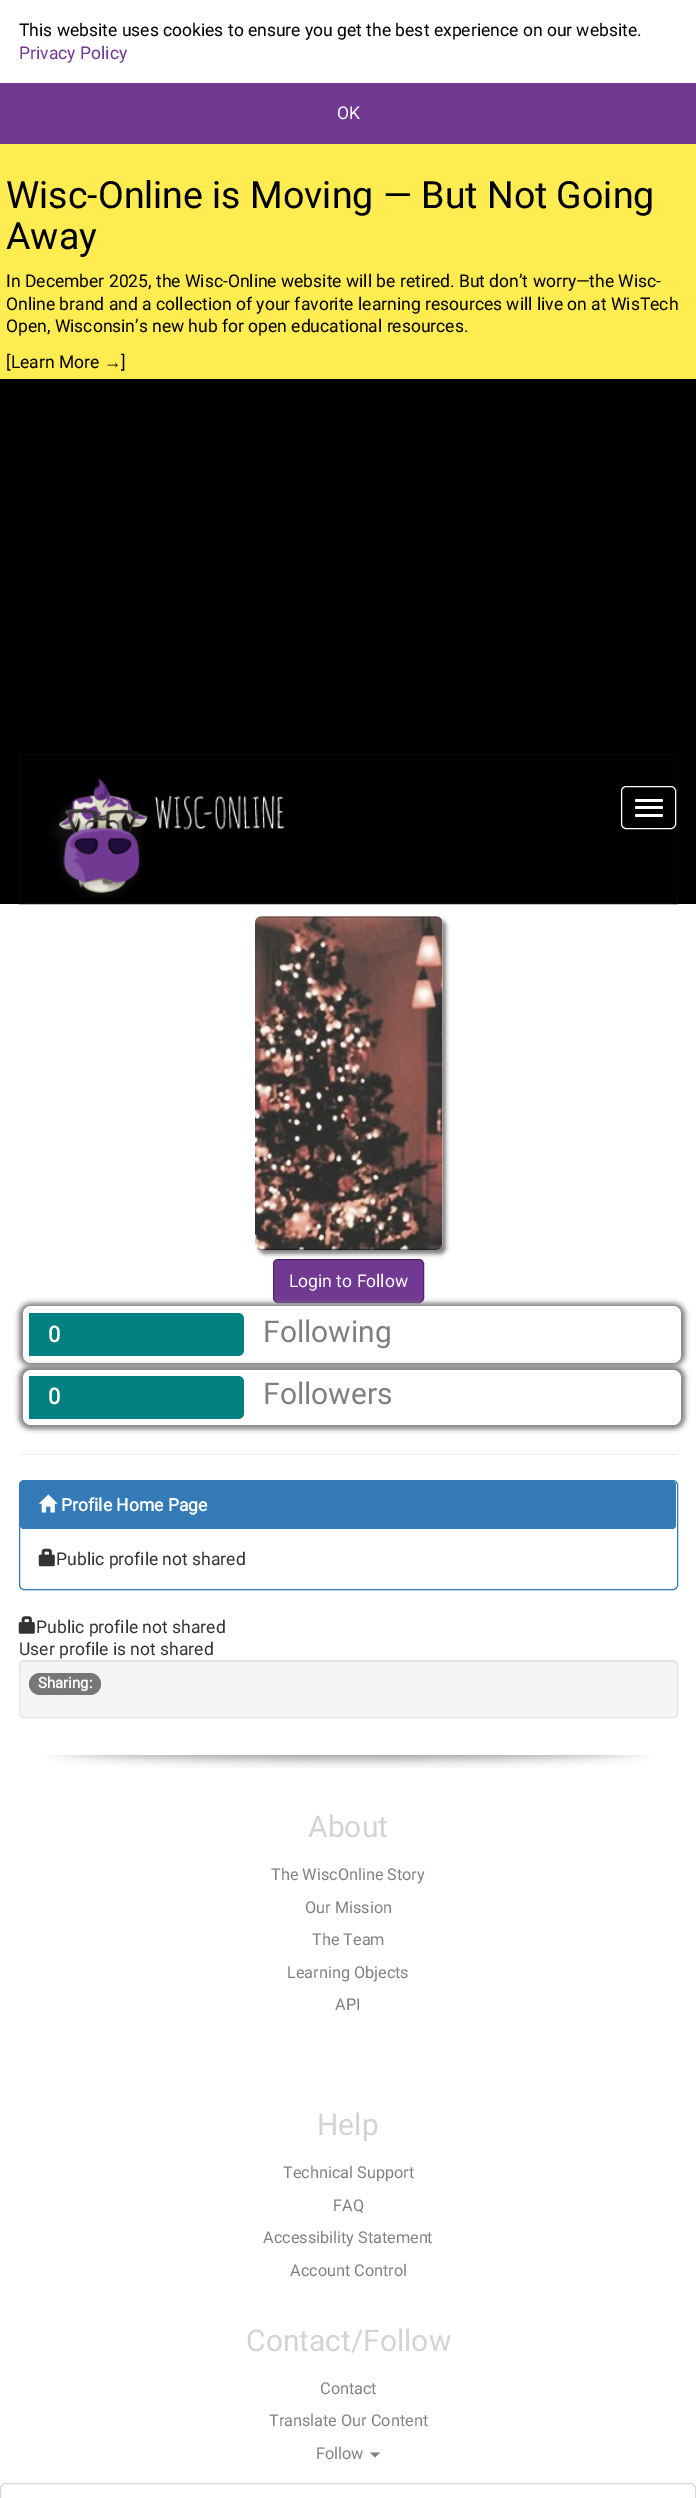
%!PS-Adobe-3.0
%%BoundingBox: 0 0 696 2498
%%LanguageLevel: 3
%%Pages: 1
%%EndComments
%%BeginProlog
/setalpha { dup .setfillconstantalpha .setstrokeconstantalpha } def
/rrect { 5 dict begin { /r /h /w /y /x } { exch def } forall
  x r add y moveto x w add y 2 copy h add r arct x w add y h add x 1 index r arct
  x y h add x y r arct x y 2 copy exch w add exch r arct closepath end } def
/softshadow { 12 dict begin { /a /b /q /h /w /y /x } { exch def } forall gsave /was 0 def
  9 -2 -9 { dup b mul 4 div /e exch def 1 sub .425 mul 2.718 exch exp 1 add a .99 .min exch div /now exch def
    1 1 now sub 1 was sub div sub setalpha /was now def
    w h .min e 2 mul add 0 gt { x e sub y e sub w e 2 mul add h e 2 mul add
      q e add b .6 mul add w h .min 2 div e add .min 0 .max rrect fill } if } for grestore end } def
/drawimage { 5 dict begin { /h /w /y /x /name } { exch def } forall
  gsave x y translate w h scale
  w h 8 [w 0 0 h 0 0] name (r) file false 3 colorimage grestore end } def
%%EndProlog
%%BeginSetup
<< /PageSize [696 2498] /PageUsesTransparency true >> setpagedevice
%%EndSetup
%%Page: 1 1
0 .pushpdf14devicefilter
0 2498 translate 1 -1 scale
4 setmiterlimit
1 setgray
0 0 696 2498 rectfill
0.447 0.224 0.576 setrgbcolor
0 83 696 61 rectfill
1 0.925 0.318 setrgbcolor
0 144 696 235 rectfill
0 setgray
0 379 696 525 rectfill
0.031 setgray
19.5 754.5 658 149 rectstroke
(images/1.raw) 48 778 237 121 drawimage
1 setgray
621.5 786.5 54 42 4.5 rrect stroke
635 799 28 3 1.5 rrect fill
635 806 28 3 1.5 rrect fill
635 814 28 3 1.5 rrect fill
0.502 setgray
259 920 187 334 6 2 1 softshadow
(images/2.raw) 255 916 188 334 drawimage
0.447 0.224 0.576 setrgbcolor
273.5 1259.5 150 43 4.5 rrect gsave fill grestore
0.302 0.133 0.427 setrgbcolor
stroke
0.502 setgray
19 1303 666 63 11 2.5 1 softshadow
1 setgray
23 1306 658 57 8 rrect fill
0 0.502 0.502 setrgbcolor
newpath 29 1313 moveto 238 1313 lineto 241.5 1313 244 1315.5 244 1319 curveto 244 1350 lineto 244 1353.5 241.5 1356 238 1356 curveto 29 1356 lineto closepath fill
0.502 setgray
19 1366 666 63 11 2.5 1 softshadow
1 setgray
23 1370 658 55 8 rrect fill
0 0.502 0.502 setrgbcolor
newpath 29 1376 moveto 238 1376 lineto 241.5 1376 244 1378.5 244 1382 curveto 244 1413 lineto 244 1416.5 241.5 1419 238 1419 curveto 29 1419 lineto closepath fill
0.933 setgray
19 1454 659 1 rectfill
0 setgray
19 1481 659 110 5 0.5 0.05 softshadow
1 setgray
19.5 1480.5 658 109 4.5 rrect gsave fill grestore
0.2 0.478 0.718 setrgbcolor
stroke
20 1481 656 48 4 rrect fill
(images/3.raw) 39 1494 19 19 drawimage
(images/4.raw) 38 1548 17 19 drawimage
(images/5.raw) 18 1616 17 18 drawimage
0.961 setgray
19 1660 659 58 5 rrect fill
0.914 setgray
newpath 24 1662 moveto 672 1662 lineto 675 1662 676 1664 676 1666 curveto 676 1663 675 1661 672 1661 curveto 24 1661 lineto 21 1662 lineto 20 1663 lineto 20 1666 lineto 20 1664 22 1662 24 1662 curveto closepath fill
0.89 setgray
19.5 1660.5 658 57 4.5 rrect stroke
0.467 setgray
29 1673 72 22 11 rrect fill
(images/6.raw) 46 1755 604 13 drawimage
0.502 setgray
newpath 370 2452.5 moveto 380 2452.5 lineto 375 2457.5 lineto closepath fill
0.847 setgray
0.5 2483.5 695 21 5.5 rrect stroke
/Roboto-Regular [17.5 0 0 -17.5 0 0] selectfont
0 setgray
19 36 moveto (This website uses cookies to ensure you get the best experience on our website.) show
0.447 0.224 0.576 setrgbcolor
19 59 moveto (Privacy Policy) show
1 setgray
337 119 moveto (OK) show
/Roboto-Regular [37.5 0 0 -37.5 0 0] selectfont
0 setgray
6 208 moveto (Wisc-Online is Moving — But Not Going) show
6 249 moveto (Away) show
/Roboto-Regular [17.5 0 0 -17.5 0 0] selectfont
6 287 moveto (In December 2025, the Wisc-Online website will be retired. But don’t worry—the Wisc-) show
6 310 moveto (Online brand and a collection of your favorite learning resources will live on at WisTech) show
6 332 moveto (Open, Wisconsin’s new hub for open educational resources.) show
6 368 moveto ([Learn More) show
/LiberationSans-Regular [17.5 0 0 -17.5 0 0] selectfont
104 368 moveto (→) show
/Roboto-Regular [17.5 0 0 -17.5 0 0] selectfont
121 368 moveto (]) show
1 setgray
289 1287 moveto (Login to Follow) show
/Roboto-Bold [22 0 0 -22 0 0] selectfont
48 1342 moveto (0) show
/Roboto-Regular [30 0 0 -30 0 0] selectfont
0.502 setgray
263 1342 moveto (Following) show
/Roboto-Bold [22 0 0 -22 0 0] selectfont
1 setgray
48 1404 moveto (0) show
/Roboto-Regular [30 0 0 -30 0 0] selectfont
0.502 setgray
263 1404 moveto (Followers) show
/Roboto-Bold [17.5 0 0 -17.5 0 0] selectfont
1 setgray
61 1511 moveto (Profile Home Page) show
/Roboto-Regular [17.5 0 0 -17.5 0 0] selectfont
0.2 setgray
56 1565 moveto (Public profile not shared) show
36 1633 moveto (Public profile not shared) show
19 1655 moveto (User profile is not shared) show
/Roboto-Bold [15 0 0 -15 0 0] selectfont
1 setgray
38 1688 moveto (Sharing:) show
/Roboto-Regular [30 0 0 -30 0 0] selectfont
0.827 setgray
308 1837 moveto (About) show
/Roboto-Regular [16.25 0 0 -16.25 0 0] selectfont
0.502 setgray
271 1880 moveto (The WiscOnline Story) show
305 1913 moveto (Our Mission) show
312 1945 moveto (The Team) show
287 1978 moveto (Learning Objects) show
335 2010 moveto (API) show
/Roboto-Regular [30 0 0 -30 0 0] selectfont
0.827 setgray
317 2135 moveto (Help) show
/Roboto-Regular [16.25 0 0 -16.25 0 0] selectfont
0.502 setgray
283 2178 moveto (Technical Support) show
333 2211 moveto (FAQ) show
263 2243 moveto (Accessibility Statement) show
290 2276 moveto (Account Control) show
/Roboto-Regular [30 0 0 -30 0 0] selectfont
0.827 setgray
246 2351 moveto (Contact/Follow) show
/Roboto-Regular [16.25 0 0 -16.25 0 0] selectfont
0.502 setgray
320 2394 moveto (Contact) show
269 2426 moveto (Translate Our Content) show
316 2459 moveto (Follow) show
.poppdf14devicefilter showpage
%%EOF
